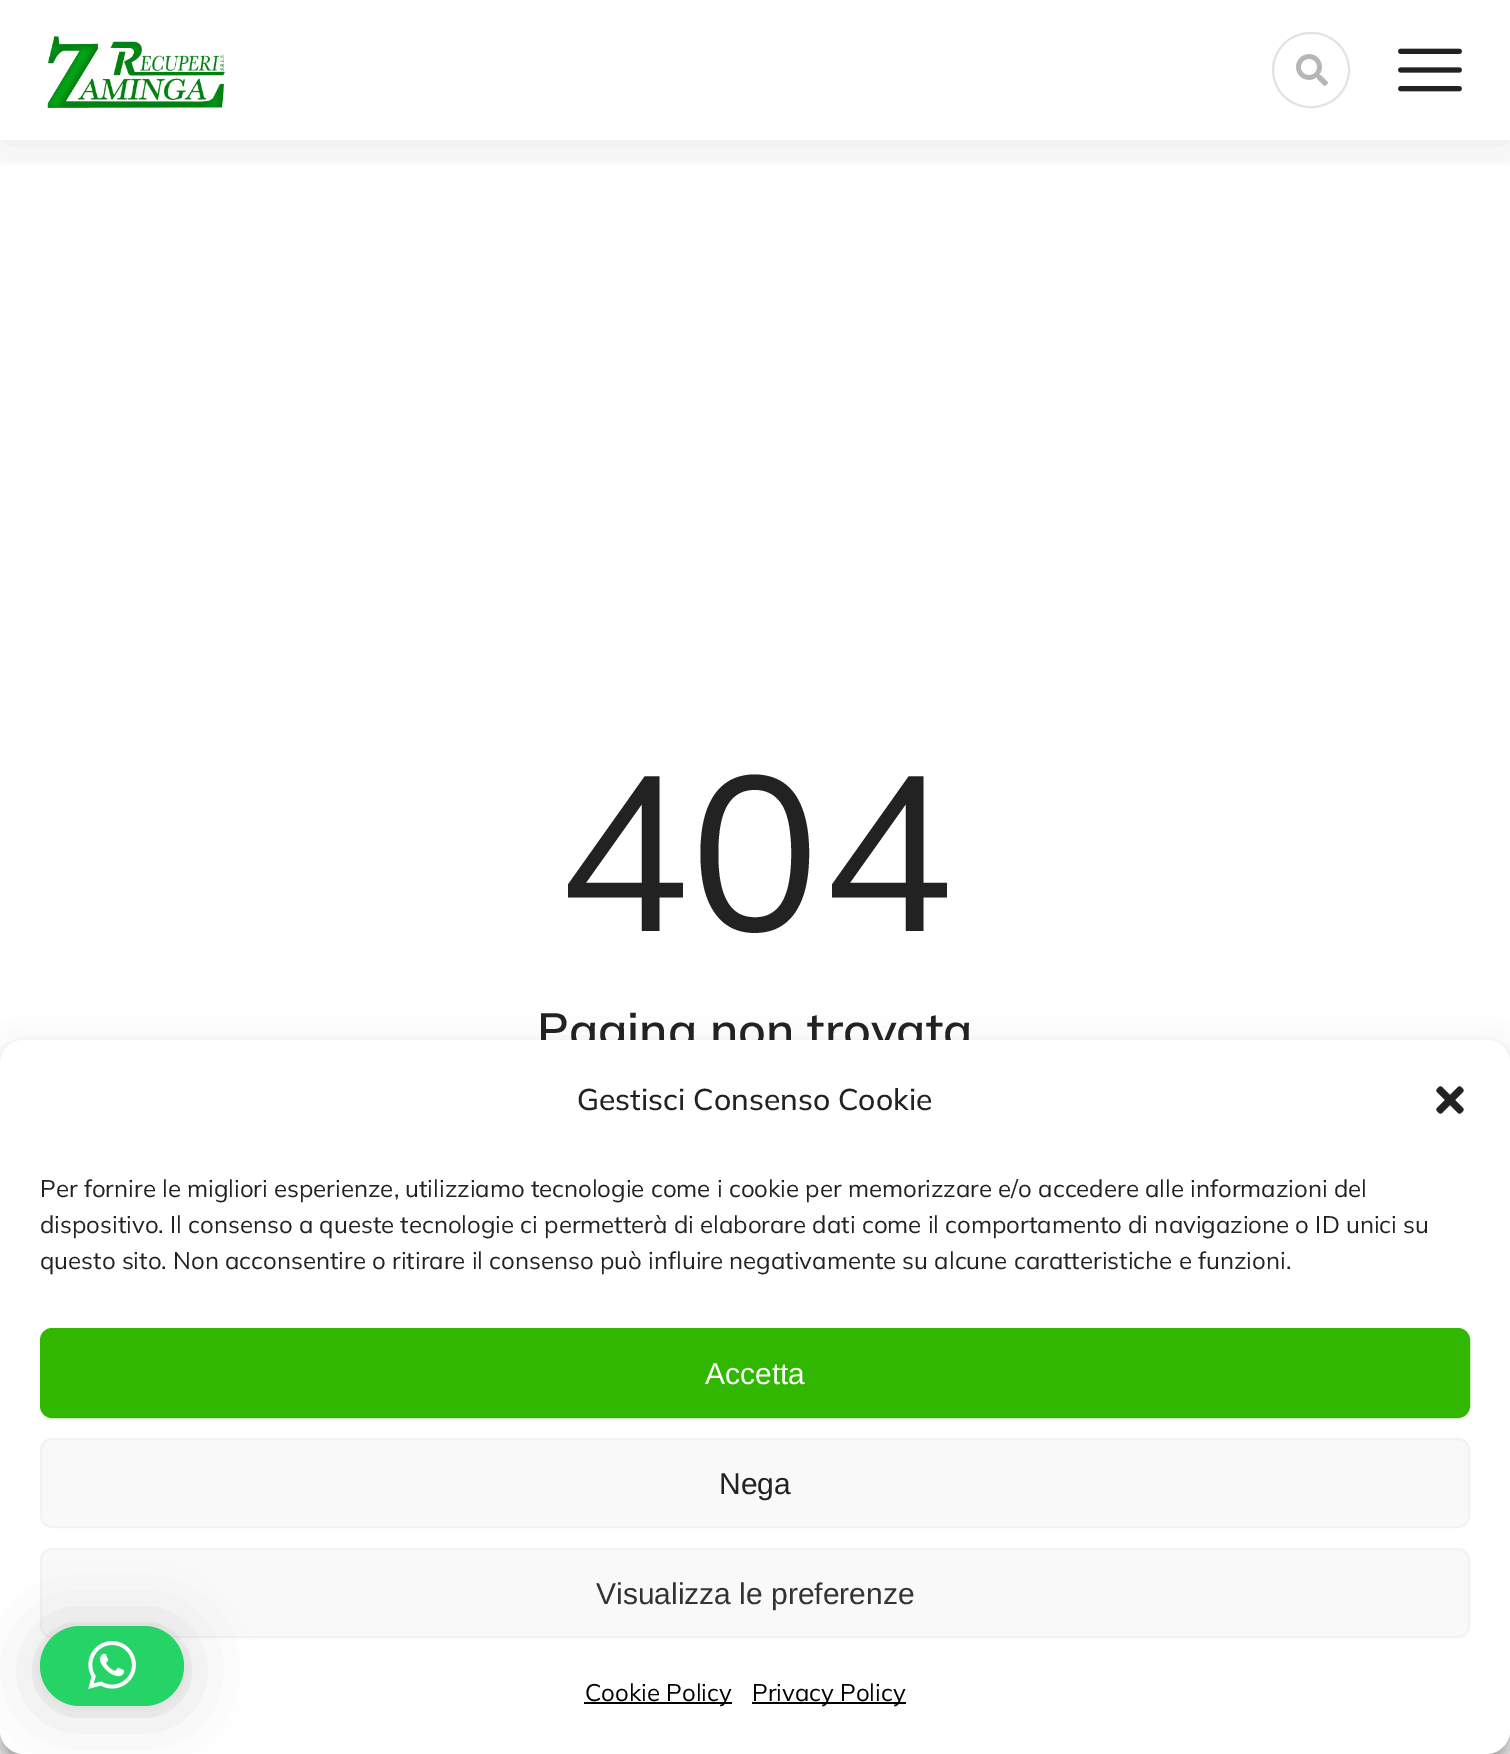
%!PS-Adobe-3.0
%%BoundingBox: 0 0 1510 1754
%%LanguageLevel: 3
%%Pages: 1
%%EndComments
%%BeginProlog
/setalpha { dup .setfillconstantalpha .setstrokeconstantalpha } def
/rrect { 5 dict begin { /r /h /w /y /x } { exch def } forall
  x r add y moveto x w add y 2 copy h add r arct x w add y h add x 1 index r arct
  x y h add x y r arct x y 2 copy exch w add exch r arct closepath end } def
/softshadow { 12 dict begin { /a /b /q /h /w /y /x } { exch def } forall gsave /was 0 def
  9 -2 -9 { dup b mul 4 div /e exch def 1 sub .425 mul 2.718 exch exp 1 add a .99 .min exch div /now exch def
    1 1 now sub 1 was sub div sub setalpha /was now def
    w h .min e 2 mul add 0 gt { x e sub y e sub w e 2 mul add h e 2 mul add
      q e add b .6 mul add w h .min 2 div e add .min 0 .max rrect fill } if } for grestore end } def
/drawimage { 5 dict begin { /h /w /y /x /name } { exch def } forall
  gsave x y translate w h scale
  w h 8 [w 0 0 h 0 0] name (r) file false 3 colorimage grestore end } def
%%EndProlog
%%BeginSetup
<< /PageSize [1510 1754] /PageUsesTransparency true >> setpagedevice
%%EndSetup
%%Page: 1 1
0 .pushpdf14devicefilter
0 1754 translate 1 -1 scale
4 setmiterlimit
1 setgray
0 0 1510 1754 rectfill
gsave
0 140 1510 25 rectclip
0 setgray
0 0 1510 140 0 30 0.1 softshadow
grestore
(images/1.raw) 47 36 178 72 drawimage
0.89 setgray
2 setlinewidth
1273 33 76 74 37 rrect stroke
(images/2.raw) 1296 54 32 32 drawimage
(images/3.raw) 1398 48 64 44 drawimage
0 setgray
0 1052 1510 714 24 6 0.23 softshadow
0 1060 1510 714 24 20 0.19 softshadow
0.502 setgray
1370 1606 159 120 4 5 1 softshadow
/Mulish-Regular [220 0 0 -220 0 0] selectfont
0.133 setgray
557 931 moveto (404) show
/Mulish-SemiBold [48 0 0 -48 0 0] selectfont
537 1047 moveto (Pagina non trovata) show
1 setgray
0 1040 1510 714 24 rrect fill
/Mulish-Medium [30 0 0 -30 0 0] selectfont
0.133 setgray
577 1110 moveto (Gestisci Consenso Cookie) show
(images/4.raw) 1436 1086 28 28 drawimage
/Mulish-Regular [24 0 0 -24 0 0] selectfont
40 1197 moveto (Per fornire le migliori esperienze, utilizziamo tecnologie come i cookie per memorizzare e/o accedere alle informazioni del) show
40 1233 moveto (dispositivo. Il consenso a queste tecnologie ci permetterà di elaborare dati come il comportamento di navigazione o ID unici su) show
40 1269 moveto (questo sito. Non acconsentire o ritirare il consenso può influire negativamente su alcune caratteristiche e funzioni.) show
0.196 0.718 0 setrgbcolor
41 1329 1428 88 11 rrect gsave fill grestore
stroke
/LiberationSans-Regular [30 0 0 -30 0 0] selectfont
1 setgray
705 1384 moveto (Accetta) show
0.976 setgray
41 1439 1428 88 11 rrect gsave fill grestore
0.949 setgray
stroke
0.133 setgray
719 1494 moveto (Nega) show
0.976 setgray
41 1549 1428 88 11 rrect gsave fill grestore
0.949 setgray
stroke
0.2 setgray
596 1604 moveto (Visualizza le preferenze) show
0 setgray
584 1702 148 2 rectfill
/Mulish-Regular [24 0 0 -24 0 0] selectfont
585 1701 moveto (Cookie Policy) show
752 1702 154 2 rectfill
752 1701 moveto (Privacy Policy) show
40 1630 144 80 40 32 0.16 softshadow
40 1628 144 80 40 6 0.06 softshadow
0.145 0.827 0.4 setrgbcolor
40 1626 144 80 40 rrect fill
(images/5.raw) 88 1641 48 48 drawimage
.poppdf14devicefilter showpage
%%EOF
